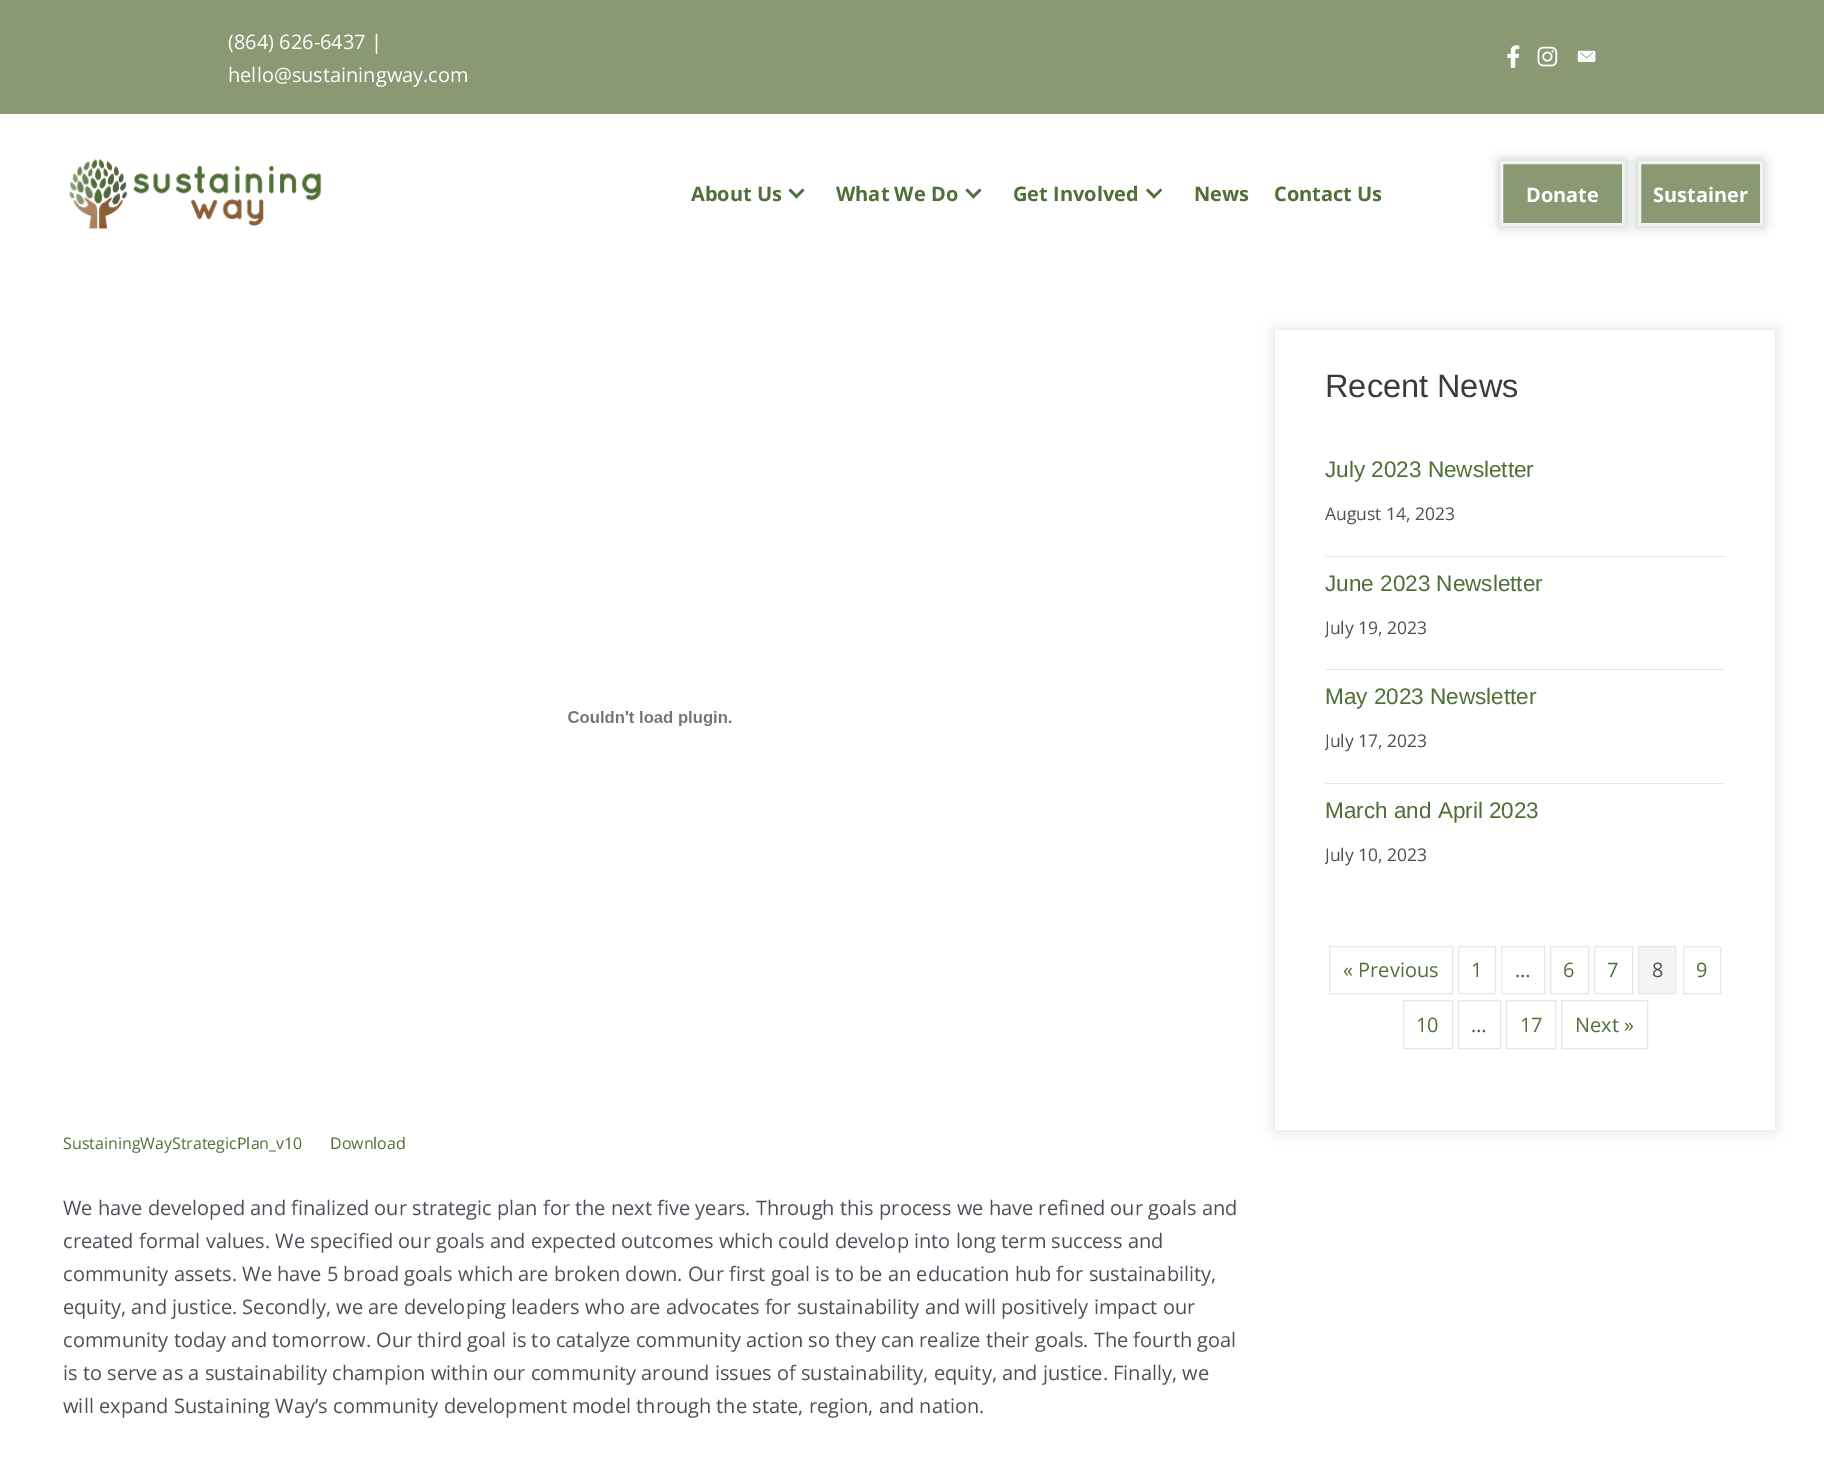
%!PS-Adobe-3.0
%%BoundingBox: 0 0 1824 1457
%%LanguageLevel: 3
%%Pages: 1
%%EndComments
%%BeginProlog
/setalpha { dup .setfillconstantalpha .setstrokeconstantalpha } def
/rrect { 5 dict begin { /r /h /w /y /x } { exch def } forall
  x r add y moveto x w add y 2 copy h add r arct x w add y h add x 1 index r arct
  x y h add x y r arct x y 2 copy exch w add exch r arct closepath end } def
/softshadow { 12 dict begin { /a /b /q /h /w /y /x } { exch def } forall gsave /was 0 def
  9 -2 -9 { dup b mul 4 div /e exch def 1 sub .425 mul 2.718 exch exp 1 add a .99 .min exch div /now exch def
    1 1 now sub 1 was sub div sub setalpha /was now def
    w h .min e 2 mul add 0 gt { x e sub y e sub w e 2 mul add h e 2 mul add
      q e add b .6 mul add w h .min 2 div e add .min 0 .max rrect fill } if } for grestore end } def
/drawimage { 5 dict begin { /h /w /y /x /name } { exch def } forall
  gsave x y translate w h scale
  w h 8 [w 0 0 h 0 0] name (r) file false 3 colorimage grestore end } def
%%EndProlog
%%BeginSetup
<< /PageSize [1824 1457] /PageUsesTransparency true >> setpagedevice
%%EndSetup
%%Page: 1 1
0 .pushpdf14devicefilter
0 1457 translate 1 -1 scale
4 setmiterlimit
1 setgray
0 0 1824 1457 rectfill
0.541 0.6 0.455 setrgbcolor
0 0 1824 114 rectfill
(images/1.raw) 1507 45 13 23 drawimage
(images/2.raw) 1537 46 21 21 drawimage
(images/3.raw) 1577 50 19 12 drawimage
(images/4.raw) 69 159 253 71 drawimage
0.31 0.435 0.22 setrgbcolor
newpath 802.5 188.5 moveto 804.5 190.5 lineto 796.5 198.5 lineto 794.5 196.5 lineto closepath fill
newpath 790.5 188.5 moveto 798 196.5 lineto 796.5 198.5 lineto 788.5 190.5 lineto closepath fill
newpath 979.5 188.5 moveto 981.5 190.5 lineto 973.5 198.5 lineto 971.5 196.5 lineto closepath fill
newpath 967.5 188.5 moveto 975 196.5 lineto 973.5 198.5 lineto 965.5 190.5 lineto closepath fill
newpath 1160.5 188.5 moveto 1162 190.5 lineto 1154 198.5 lineto 1152.5 196.5 lineto closepath fill
newpath 1148 188.5 moveto 1156 196.5 lineto 1154 198.5 lineto 1146 190.5 lineto closepath fill
0.157 0.2 0.129 setrgbcolor
1500 161 125 65 0 6 0.3 softshadow
0.541 0.6 0.455 setrgbcolor
newpath 1501.5 162.5 moveto 1623.5 162.5 lineto 1623.5 224.5 lineto 1501.5 224.5 lineto closepath gsave fill grestore
0.949 setgray
3 setlinewidth
stroke
0.157 0.2 0.129 setrgbcolor
1638 161 125 65 0 6 0.3 softshadow
0.541 0.6 0.455 setrgbcolor
newpath 1639.5 162.5 moveto 1761.5 162.5 lineto 1761.5 224.5 lineto 1639.5 224.5 lineto closepath gsave fill grestore
0.949 setgray
stroke
gsave
newpath 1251 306 moveto 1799 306 lineto 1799 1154 lineto 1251 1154 lineto closepath 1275 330 moveto 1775 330 lineto 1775 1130 lineto 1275 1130 lineto closepath eoclip newpath
0.659 setgray
1275 330 500 800 0 7.5 0.36 softshadow
grestore
0.902 setgray
1325 556 400 1 rectfill
1325 669 400 1 rectfill
1325 783 400 1 rectfill
1 setlinewidth
1329.5 946.5 123 47 rectstroke
1458.5 946.5 37 47 rectstroke
1501.5 946.5 43 47 rectstroke
1550.5 946.5 38 47 rectstroke
1594.5 946.5 38 47 rectstroke
0.961 setgray
newpath 1638.5 946.5 moveto 1675.5 946.5 lineto 1675.5 993.5 lineto 1638.5 993.5 lineto closepath gsave fill grestore
0.902 setgray
stroke
1683.5 946.5 37 47 rectstroke
1403.5 1000.5 49 48 rectstroke
1458.5 1000.5 42 48 rectstroke
1506.5 1000.5 49 48 rectstroke
1561.5 1000.5 86 48 rectstroke
(images/5.raw) 568 711 164 15 drawimage
/OpenSans-Regular [20 0 0 -20 0 0] selectfont
1 setgray
228 49 moveto (\(864\) 626-6437 |) show
228 82 moveto (hello@sustainingway.com) show
/OpenSans-Bold [20 0 0 -20 0 0] selectfont
0.31 0.435 0.22 setrgbcolor
691 201 moveto (About Us) show
836 201 moveto (What We Do) show
1013 201 moveto (Get Involved) show
1194 201 moveto (News) show
1274 201 moveto (Contact Us) show
1 setgray
1526 202 moveto (Donate) show
1653 202 moveto (Sustainer) show
/LiberationSans-Regular [32.5 0 0 -32.5 0 0] selectfont
0.227 setgray
1325 397 moveto (Recent News) show
/LiberationSans-Regular [22.5 0 0 -22.5 0 0] selectfont
0.31 0.435 0.22 setrgbcolor
1325 477 moveto (July 2023 Newsletter) show
/OpenSans-Regular [17.5 0 0 -17.5 0 0] selectfont
0.294 0.31 0.345 setrgbcolor
1325 520 moveto (August 14, 2023) show
/LiberationSans-Regular [22.5 0 0 -22.5 0 0] selectfont
0.31 0.435 0.22 setrgbcolor
1325 591 moveto (June 2023 Newsletter) show
gsave
1325 570 400 99 rectclip
/OpenSans-Regular [17.5 0 0 -17.5 0 0] selectfont
0.294 0.31 0.345 setrgbcolor
1325 634 moveto (July 19, 2023) show
grestore
1325 704 moveto (May 2023 Newsletter) show
gsave
1325 683 400 100 rectclip
/OpenSans-Regular [17.5 0 0 -17.5 0 0] selectfont
0.294 0.31 0.345 setrgbcolor
1325 747 moveto (July 17, 2023) show
grestore
1325 818 moveto (March and April 2023) show
gsave
1325 796 400 100 rectclip
/OpenSans-Regular [17.5 0 0 -17.5 0 0] selectfont
0.294 0.31 0.345 setrgbcolor
1325 861 moveto (July 10, 2023) show
grestore
/OpenSans-Regular [20 0 0 -20 0 0] selectfont
1343 977 moveto (« Previous) show
1471 977 moveto (1) show
0.294 0.31 0.345 setrgbcolor
1515 977 moveto (…) show
0.31 0.435 0.22 setrgbcolor
1563 977 moveto (6) show
1607 977 moveto (7) show
0.294 0.31 0.345 setrgbcolor
1652 977 moveto (8) show
0.31 0.435 0.22 setrgbcolor
1696 977 moveto (9) show
1416 1032 moveto (10) show
0.294 0.31 0.345 setrgbcolor
1471 1032 moveto (…) show
0.31 0.435 0.22 setrgbcolor
1520 1032 moveto (17) show
1575 1032 moveto (Next ») show
/OpenSans-Regular [16 0 0 -16 0 0] selectfont
63 1149 moveto (SustainingWayStrategicPlan_v10) show
330 1149 moveto (Download) show
/OpenSans-Regular [20 0 0 -20 0 0] selectfont
0.294 0.31 0.345 setrgbcolor
63 1215 moveto (We have developed and finalized our strategic plan for the next five years. Through this process we have refined our goals and) show
63 1248 moveto (created formal values. We specified our goals and expected outcomes which could develop into long term success and) show
63 1281 moveto (community assets. We have 5 broad goals which are broken down. Our first goal is to be an education hub for sustainability,) show
63 1314 moveto (equity, and justice. Secondly, we are developing leaders who are advocates for sustainability and will positively impact our) show
63 1347 moveto (community today and tomorrow. Our third goal is to catalyze community action so they can realize their goals. The fourth goal) show
63 1380 moveto (is to serve as a sustainability champion within our community around issues of sustainability, equity, and justice. Finally, we) show
63 1413 moveto (will expand Sustaining Way’s community development model through the state, region, and nation.) show
.poppdf14devicefilter showpage
%%EOF
